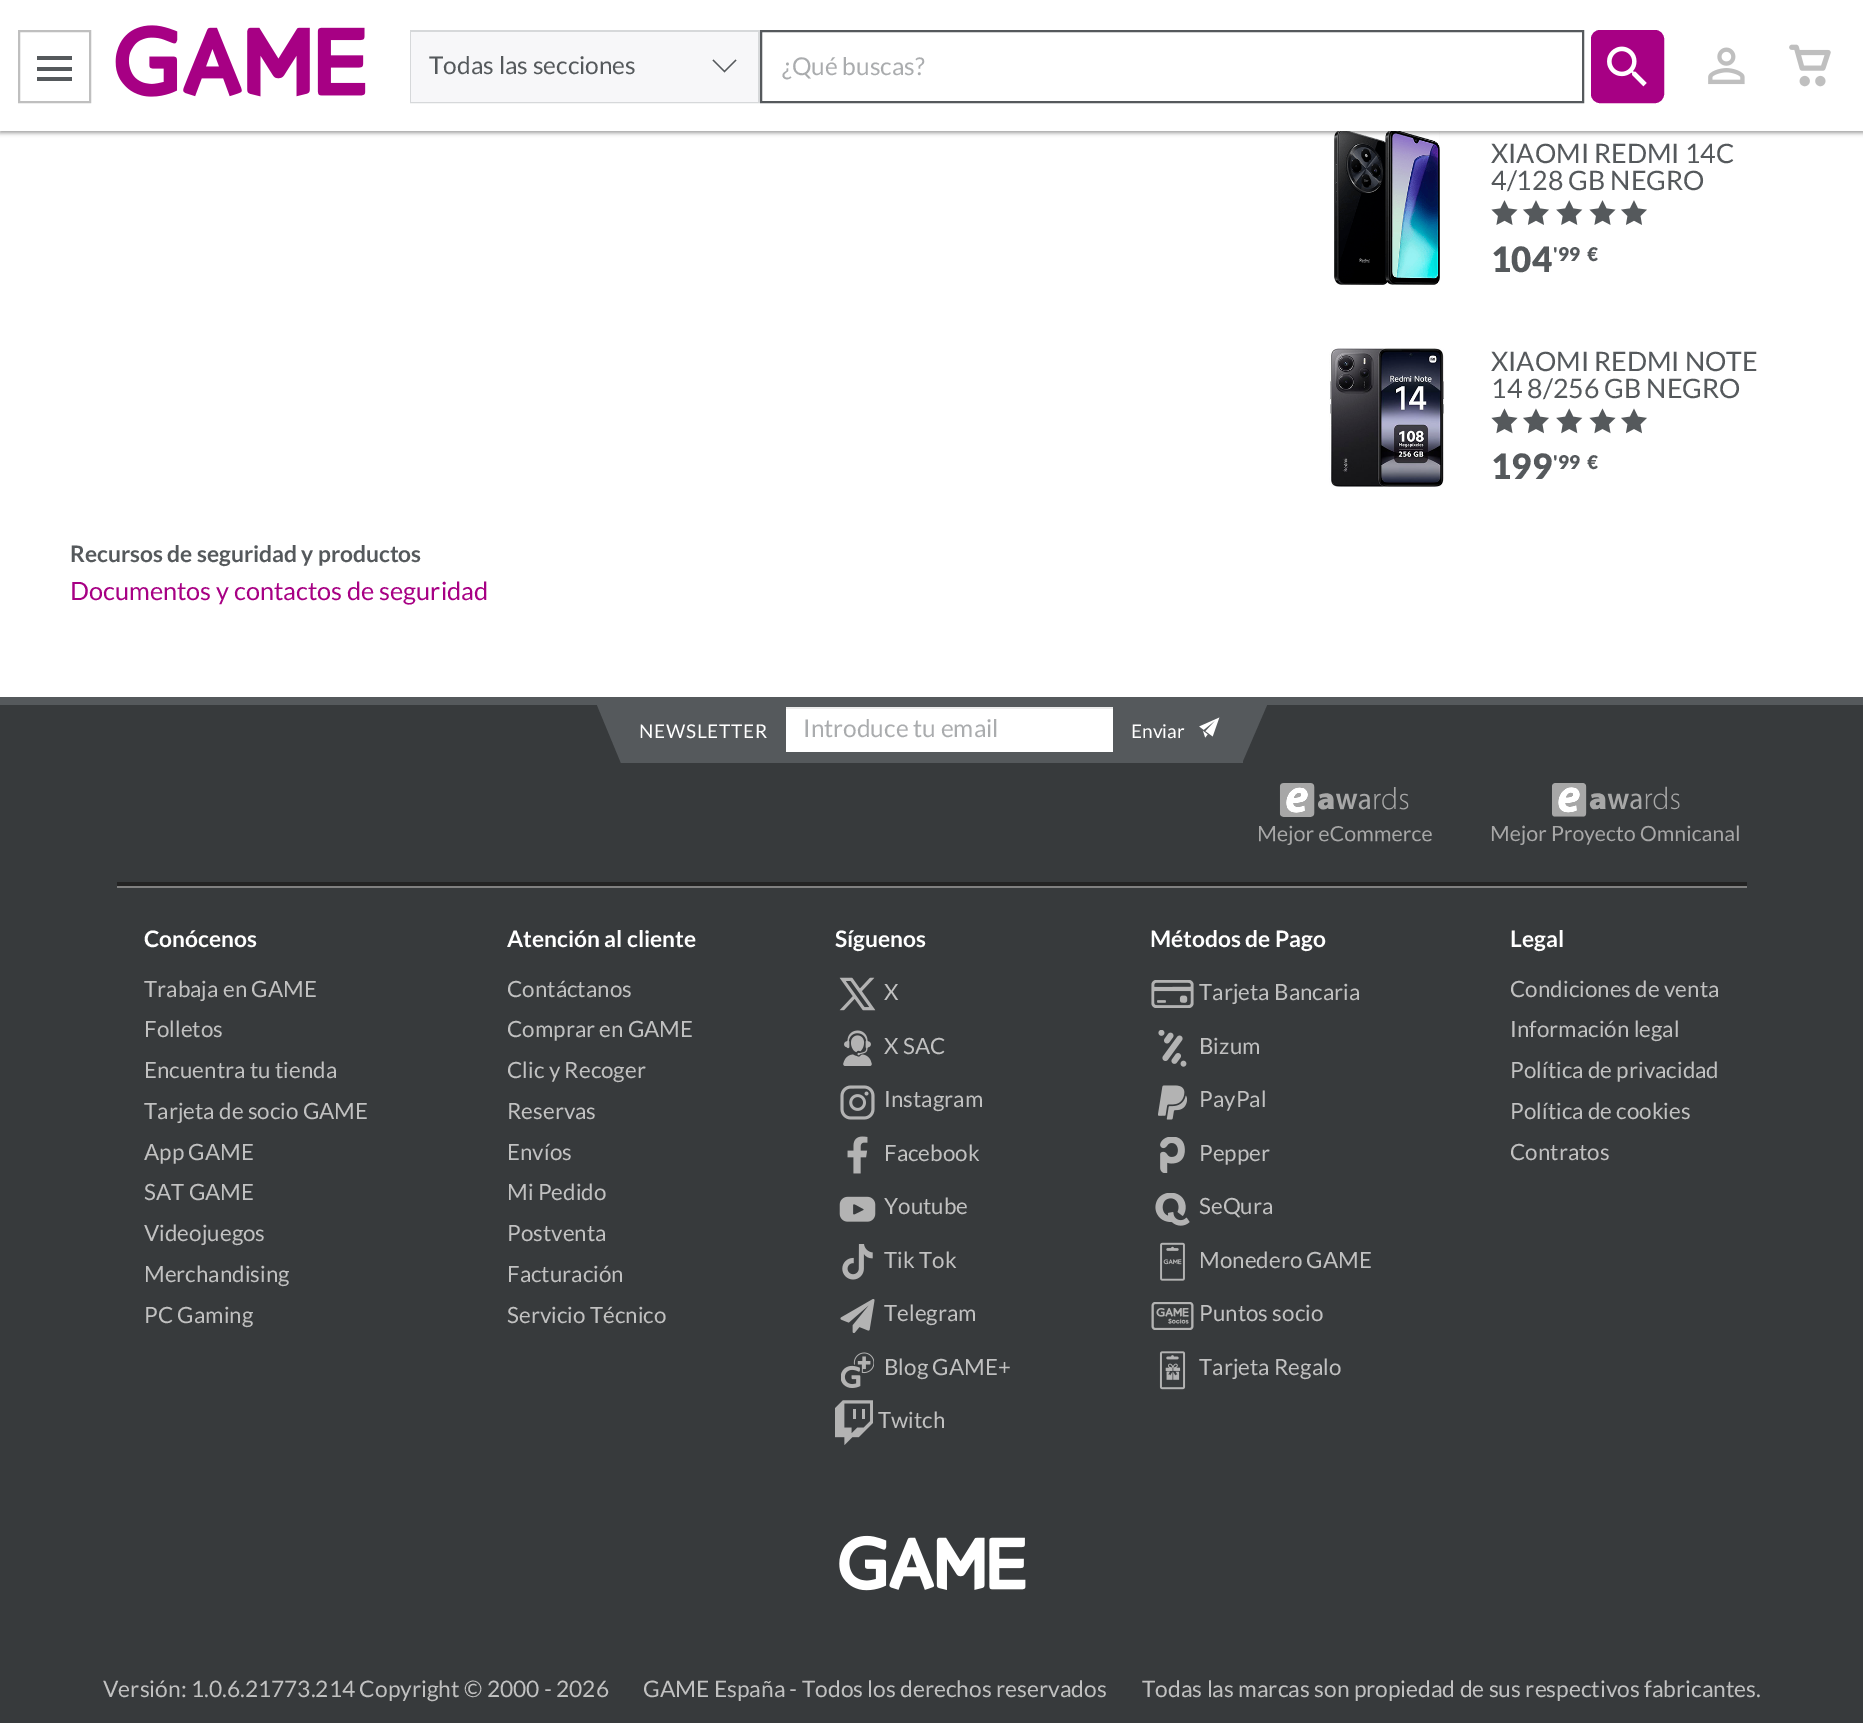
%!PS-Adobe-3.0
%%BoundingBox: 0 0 1863 1723
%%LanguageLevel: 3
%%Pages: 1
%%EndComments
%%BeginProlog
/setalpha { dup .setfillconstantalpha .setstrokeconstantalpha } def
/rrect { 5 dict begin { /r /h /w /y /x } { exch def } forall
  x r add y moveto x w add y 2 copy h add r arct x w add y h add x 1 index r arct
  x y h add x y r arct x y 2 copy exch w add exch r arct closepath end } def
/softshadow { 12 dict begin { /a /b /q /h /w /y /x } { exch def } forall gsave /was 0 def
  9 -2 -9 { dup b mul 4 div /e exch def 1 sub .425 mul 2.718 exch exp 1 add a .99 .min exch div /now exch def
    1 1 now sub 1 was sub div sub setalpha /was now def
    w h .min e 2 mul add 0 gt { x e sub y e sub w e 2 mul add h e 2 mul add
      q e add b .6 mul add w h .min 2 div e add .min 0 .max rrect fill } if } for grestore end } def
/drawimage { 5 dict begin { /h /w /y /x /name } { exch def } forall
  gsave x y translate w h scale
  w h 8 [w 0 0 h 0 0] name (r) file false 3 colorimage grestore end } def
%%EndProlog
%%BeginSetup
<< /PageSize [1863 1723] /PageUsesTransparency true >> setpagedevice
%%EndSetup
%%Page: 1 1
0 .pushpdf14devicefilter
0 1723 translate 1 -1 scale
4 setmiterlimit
1 setgray
0 0 1863 1723 rectfill
(images/5.raw) 1334 131 106 154 drawimage
0 setgray
0 2 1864 131 0 2 0.37 softshadow
1 setgray
0 0 1863 131 rectfill
0.749 setgray
2 setlinewidth
19 31 71 71 rectstroke
0.333 0.349 0.361 setrgbcolor
37 56 35 4 rectfill
37 67 35 4 rectfill
37 77 35 4 rectfill
(images/1.raw) 115 25 251 72 drawimage
0.839 0.847 0.855 setrgbcolor
411 31 348 71 rectstroke
0.969 0.969 0.976 setrgbcolor
411 32 347 70 rectfill
0.333 0.349 0.361 setrgbcolor
newpath 724.5 72.5 moveto 712.5 60.5 lineto 713.5 59.5 lineto 724.5 70.5 lineto 735.5 59.5 lineto 736.5 60.5 lineto closepath fill
761 31 822 71 rectstroke
0.655 0 0.518 setrgbcolor
1592 31 71 71 8 rrect gsave fill grestore
stroke
(images/2.raw) 1607 46 40 41 drawimage
(images/3.raw) 1708 47 37 38 drawimage
(images/4.raw) 1789 44 42 43 drawimage
(images/6.raw) 1491 200 27 25 drawimage
(images/7.raw) 1523 200 26 25 drawimage
(images/8.raw) 1556 200 27 25 drawimage
(images/6.raw) 1589 200 27 25 drawimage
(images/7.raw) 1621 200 26 25 drawimage
(images/9.raw) 1329 348 115 139 drawimage
(images/10.raw) 1491 408 27 26 drawimage
(images/11.raw) 1523 408 26 26 drawimage
(images/12.raw) 1556 408 27 26 drawimage
(images/10.raw) 1589 408 27 26 drawimage
(images/11.raw) 1621 408 26 26 drawimage
0.216 0.227 0.235 setrgbcolor
0 705 1863 1018 rectfill
0.333 0.349 0.361 setrgbcolor
0 697 1863 8 rectfill
621 705 622 58 rectfill
newpath 597 705 moveto 621 705 lineto 621 763 lineto closepath fill
1 setgray
786 709 327 43 rectfill
0.925 setgray
786 707 327 2 rectfill
(images/13.raw) 1199 717 21 21 drawimage
0.333 0.349 0.361 setrgbcolor
newpath 1242 705 moveto 1267 705 lineto 1242 763 lineto closepath fill
(images/14.raw) 1259 783 173 62 drawimage
(images/15.raw) 1491 783 248 62 drawimage
0.137 setgray
117 882 1630 4 rectfill
0.502 setgray
117 886 1630 2 rectfill
(images/16.raw) 839 977 37 34 drawimage
(images/17.raw) 843 1030 29 36 drawimage
(images/18.raw) 840 1085 35 35 drawimage
(images/19.raw) 847 1136 21 38 drawimage
(images/20.raw) 839 1196 37 26 drawimage
(images/21.raw) 842 1244 31 36 drawimage
(images/22.raw) 840 1299 35 34 drawimage
(images/23.raw) 841 1352 33 36 drawimage
(images/24.raw) 835 1400 38 45 drawimage
(images/25.raw) 1151 980 43 28 drawimage
(images/26.raw) 1158 1030 29 37 drawimage
(images/27.raw) 1158 1085 29 35 drawimage
(images/28.raw) 1160 1137 25 36 drawimage
(images/29.raw) 1155 1193 35 33 drawimage
(images/30.raw) 1160 1242 25 39 drawimage
(images/31.raw) 1151 1302 43 28 drawimage
(images/32.raw) 1159 1351 27 39 drawimage
(images/33.raw) 839 1535 187 56 drawimage
/Lato-Regular [24.5 0 0 -24.5 0 0] selectfont
0.333 0.349 0.361 setrgbcolor
429 74 moveto (Todas las secciones) show
0.667 0.675 0.682 setrgbcolor
782 75 moveto (¿Qué buscas?) show
/Lato-Regular [26.75 0 0 -26.75 0 0] selectfont
0.333 0.349 0.361 setrgbcolor
1491 163 moveto (XIAOMI REDMI 14C) show
1491 190 moveto (4/128 GB NEGRO) show
/Lato-Black [35 0 0 -35 0 0] selectfont
1491 272 moveto (104) show
/Lato-Black [19 0 0 -19 0 0] selectfont
1553 261 moveto ('99) show
1587 261 moveto (€) show
/Lato-Regular [26.75 0 0 -26.75 0 0] selectfont
1491 371 moveto (XIAOMI REDMI NOTE) show
1491 398 moveto (14 8/256 GB NEGRO) show
/Lato-Black [35 0 0 -35 0 0] selectfont
1491 479 moveto (199) show
/Lato-Black [19 0 0 -19 0 0] selectfont
1553 469 moveto ('99) show
1587 469 moveto (€) show
/Lato-Bold [22.75 0 0 -22.75 0 0] selectfont
70 562 moveto (Recursos de seguridad y productos) show
/Lato-Regular [25.25 0 0 -25.25 0 0] selectfont
0.655 0 0.518 setrgbcolor
70 600 moveto (Documentos y contactos de seguridad) show
/Lato-Regular [19 0 0 -19 0 0] selectfont
1 setgray
639 738 moveto 0.75 0 (NEWSLETTER) ashow
/Lato-Regular [24.5 0 0 -24.5 0 0] selectfont
0.667 0.675 0.682 setrgbcolor
803 737 moveto (Introduce tu email) show
/Lato-Regular [19 0 0 -19 0 0] selectfont
1 setgray
1131 738 moveto (Enviar) show
/Lato-Bold [22.75 0 0 -22.75 0 0] selectfont
144 947 moveto (Conócenos) show
/Lato-Regular [22.4 0 0 -22.4 0 0] selectfont
0.757 setgray
144 997 moveto (Trabaja en GAME) show
144 1037 moveto (Folletos) show
144 1078 moveto (Encuentra tu tienda) show
144 1119 moveto (Tarjeta de socio GAME) show
144 1160 moveto (App GAME) show
144 1200 moveto (SAT GAME) show
144 1241 moveto (Videojuegos) show
144 1282 moveto (Merchandising) show
144 1323 moveto (PC Gaming) show
/Lato-Bold [22.75 0 0 -22.75 0 0] selectfont
1 setgray
507 947 moveto (Atención al cliente) show
/Lato-Regular [22.4 0 0 -22.4 0 0] selectfont
0.757 setgray
507 997 moveto (Contáctanos) show
507 1037 moveto (Comprar en GAME) show
507 1078 moveto (Clic y Recoger) show
507 1119 moveto (Reservas) show
507 1160 moveto (Envíos) show
507 1200 moveto (Mi Pedido) show
507 1241 moveto (Postventa) show
507 1282 moveto (Facturación) show
507 1323 moveto (Servicio Técnico) show
/Lato-Bold [22.75 0 0 -22.75 0 0] selectfont
1 setgray
835 947 moveto (Síguenos) show
/Lato-Regular [22.4 0 0 -22.4 0 0] selectfont
0.757 setgray
884 1000 moveto (X) show
884 1054 moveto (X SAC) show
884 1107 moveto (Instagram) show
884 1161 moveto (Facebook) show
884 1214 moveto (Youtube) show
884 1268 moveto (Tik Tok) show
884 1321 moveto (Telegram) show
884 1375 moveto (Blog GAME+) show
878 1428 moveto (Twitch) show
/Lato-Bold [22.75 0 0 -22.75 0 0] selectfont
1 setgray
1150 947 moveto (Métodos de Pago) show
/Lato-Regular [22.4 0 0 -22.4 0 0] selectfont
0.757 setgray
1199 1000 moveto (Tarjeta Bancaria) show
1199 1054 moveto (Bizum) show
1199 1107 moveto (PayPal) show
1199 1161 moveto (Pepper) show
1199 1214 moveto (SeQura) show
1199 1268 moveto (Monedero GAME) show
1199 1321 moveto (Puntos socio) show
1199 1375 moveto (Tarjeta Regalo) show
/Lato-Bold [22.75 0 0 -22.75 0 0] selectfont
1 setgray
1510 947 moveto (Legal) show
/Lato-Regular [22.4 0 0 -22.4 0 0] selectfont
0.757 setgray
1510 997 moveto (Condiciones de venta) show
1510 1037 moveto (Información legal) show
1510 1078 moveto (Política de privacidad) show
1510 1119 moveto (Política de cookies) show
1510 1160 moveto (Contratos) show
/Lato-Regular [22.75 0 0 -22.75 0 0] selectfont
103 1697 moveto (Versión: 1.0.6.21773.214 Copyright © 2000 - 2026) show
643 1697 moveto (GAME España - Todos los derechos reservados) show
1142 1697 moveto (Todas las marcas son propiedad de sus respectivos fabricantes.) show
.poppdf14devicefilter showpage
%%EOF
